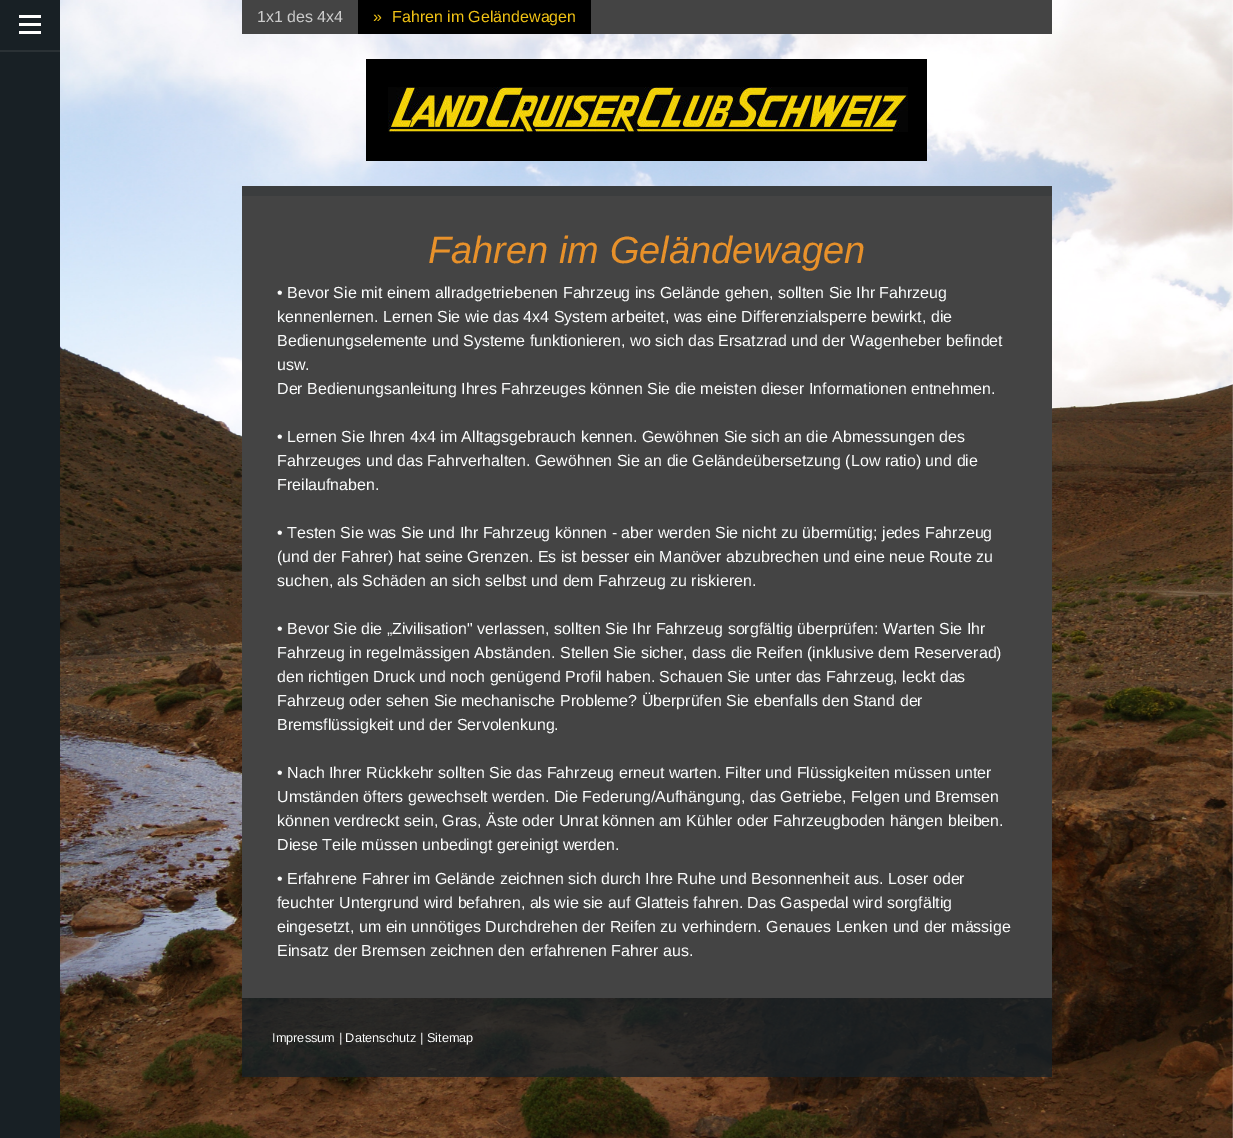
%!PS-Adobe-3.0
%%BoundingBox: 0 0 1233 1138
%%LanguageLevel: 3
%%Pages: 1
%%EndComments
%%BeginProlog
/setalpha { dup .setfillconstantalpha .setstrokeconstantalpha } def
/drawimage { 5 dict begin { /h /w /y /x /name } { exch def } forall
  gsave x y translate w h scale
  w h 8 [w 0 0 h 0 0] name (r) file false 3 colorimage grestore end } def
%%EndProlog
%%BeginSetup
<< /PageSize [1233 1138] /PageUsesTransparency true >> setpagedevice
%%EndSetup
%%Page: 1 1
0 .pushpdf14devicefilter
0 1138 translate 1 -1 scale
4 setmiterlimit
1 setgray
0 0 1233 1138 rectfill
0.094 0.125 0.145 setrgbcolor
0 0 60 1138 rectfill
1 setgray
19 23 22 3 rectfill
19 15 22 3 rectfill
19 31 22 3 rectfill
0.165 0.192 0.208 setrgbcolor
0 50 60 2 rectfill
(images/1.raw) 60 0 1173 1138 drawimage
0.267 setgray
242 0 810 34 rectfill
0 setgray
358 0 233 34 rectfill
(images/2.raw) 366 59 561 102 drawimage
0.267 setgray
242 196 810 802 rectfill
0.231 0.239 0.243 setrgbcolor
242 186 810 10 rectfill
0.8 setalpha
0.094 0.125 0.145 setrgbcolor
242 998 810 79 rectfill
/LiberationSans-Regular [16 0 0 -16 0 0] selectfont
1 setalpha
0.8 setgray
257 22 moveto (1x1 des 4x4) show
0.949 0.765 0.078 setrgbcolor
373 22 moveto (») show
392 22 moveto (Fahren im Geländewagen) show
/LiberationSans-Italic [38 0 0 -38 0 0] selectfont
0.91 0.569 0.165 setrgbcolor
428 263 moveto (Fahren im Geländewagen) show
/LiberationSans-Regular [16 0 0 -16 0 0] selectfont
0.988 0.992 0.992 setrgbcolor
277 298 moveto (• Bevor Sie mit einem allradgetriebenen Fahrzeug ins Gelände gehen, sollten Sie Ihr Fahrzeug) show
277 322 moveto (kennenlernen. Lernen Sie wie das 4x4 System arbeitet, was eine Differenzialsperre bewirkt, die) show
277 346 moveto (Bedienungselemente und Systeme funktionieren, wo sich das Ersatzrad und der Wagenheber befindet) show
277 370 moveto (usw.) show
277 394 moveto (Der Bedienungsanleitung Ihres Fahrzeuges können Sie die meisten dieser Informationen entnehmen.) show
277 442 moveto (• Lernen Sie Ihren 4x4 im Alltagsgebrauch kennen. Gewöhnen Sie sich an die Abmessungen des) show
277 466 moveto (Fahrzeuges und das Fahrverhalten. Gewöhnen Sie an die Geländeübersetzung \(Low ratio\) und die) show
277 490 moveto (Freilaufnaben.) show
277 538 moveto (• Testen Sie was Sie und Ihr Fahrzeug können - aber werden Sie nicht zu übermütig; jedes Fahrzeug) show
277 562 moveto (\(und der Fahrer\) hat seine Grenzen. Es ist besser ein Manöver abzubrechen und eine neue Route zu) show
277 586 moveto (suchen, als Schäden an sich selbst und dem Fahrzeug zu riskieren.) show
277 634 moveto (• Bevor Sie die „Zivilisation" verlassen, sollten Sie Ihr Fahrzeug sorgfältig überprüfen: Warten Sie Ihr) show
277 658 moveto (Fahrzeug in regelmässigen Abständen. Stellen Sie sicher, dass die Reifen \(inklusive dem Reserverad\)) show
277 682 moveto (den richtigen Druck und noch genügend Profil haben. Schauen Sie unter das Fahrzeug, leckt das) show
277 706 moveto (Fahrzeug oder sehen Sie mechanische Probleme? Überprüfen Sie ebenfalls den Stand der) show
277 730 moveto (Bremsflüssigkeit und der Servolenkung.) show
277 778 moveto (• Nach Ihrer Rückkehr sollten Sie das Fahrzeug erneut warten. Filter und Flüssigkeiten müssen unter) show
277 802 moveto (Umständen öfters gewechselt werden. Die Federung/Aufhängung, das Getriebe, Felgen und Bremsen) show
277 826 moveto (können verdreckt sein, Gras, Äste oder Unrat können am Kühler oder Fahrzeugboden hängen bleiben.) show
277 850 moveto (Diese Teile müssen unbedingt gereinigt werden.) show
277 884 moveto (• Erfahrene Fahrer im Gelände zeichnen sich durch Ihre Ruhe und Besonnenheit aus. Loser oder) show
277 908 moveto (feuchter Untergrund wird befahren, als wie sie auf Glatteis fahren. Das Gaspedal wird sorgfältig) show
277 932 moveto (eingesetzt, um ein unnötiges Durchdrehen der Reifen zu verhindern. Genaues Lenken und der mässige) show
277 956 moveto (Einsatz der Bremsen zeichnen den erfahrenen Fahrer aus.) show
/LiberationSans-Regular [12.75 0 0 -12.75 0 0] selectfont
272 1042 moveto (Impressum | Datenschutz | Sitemap) show
.poppdf14devicefilter showpage
%%EOF
